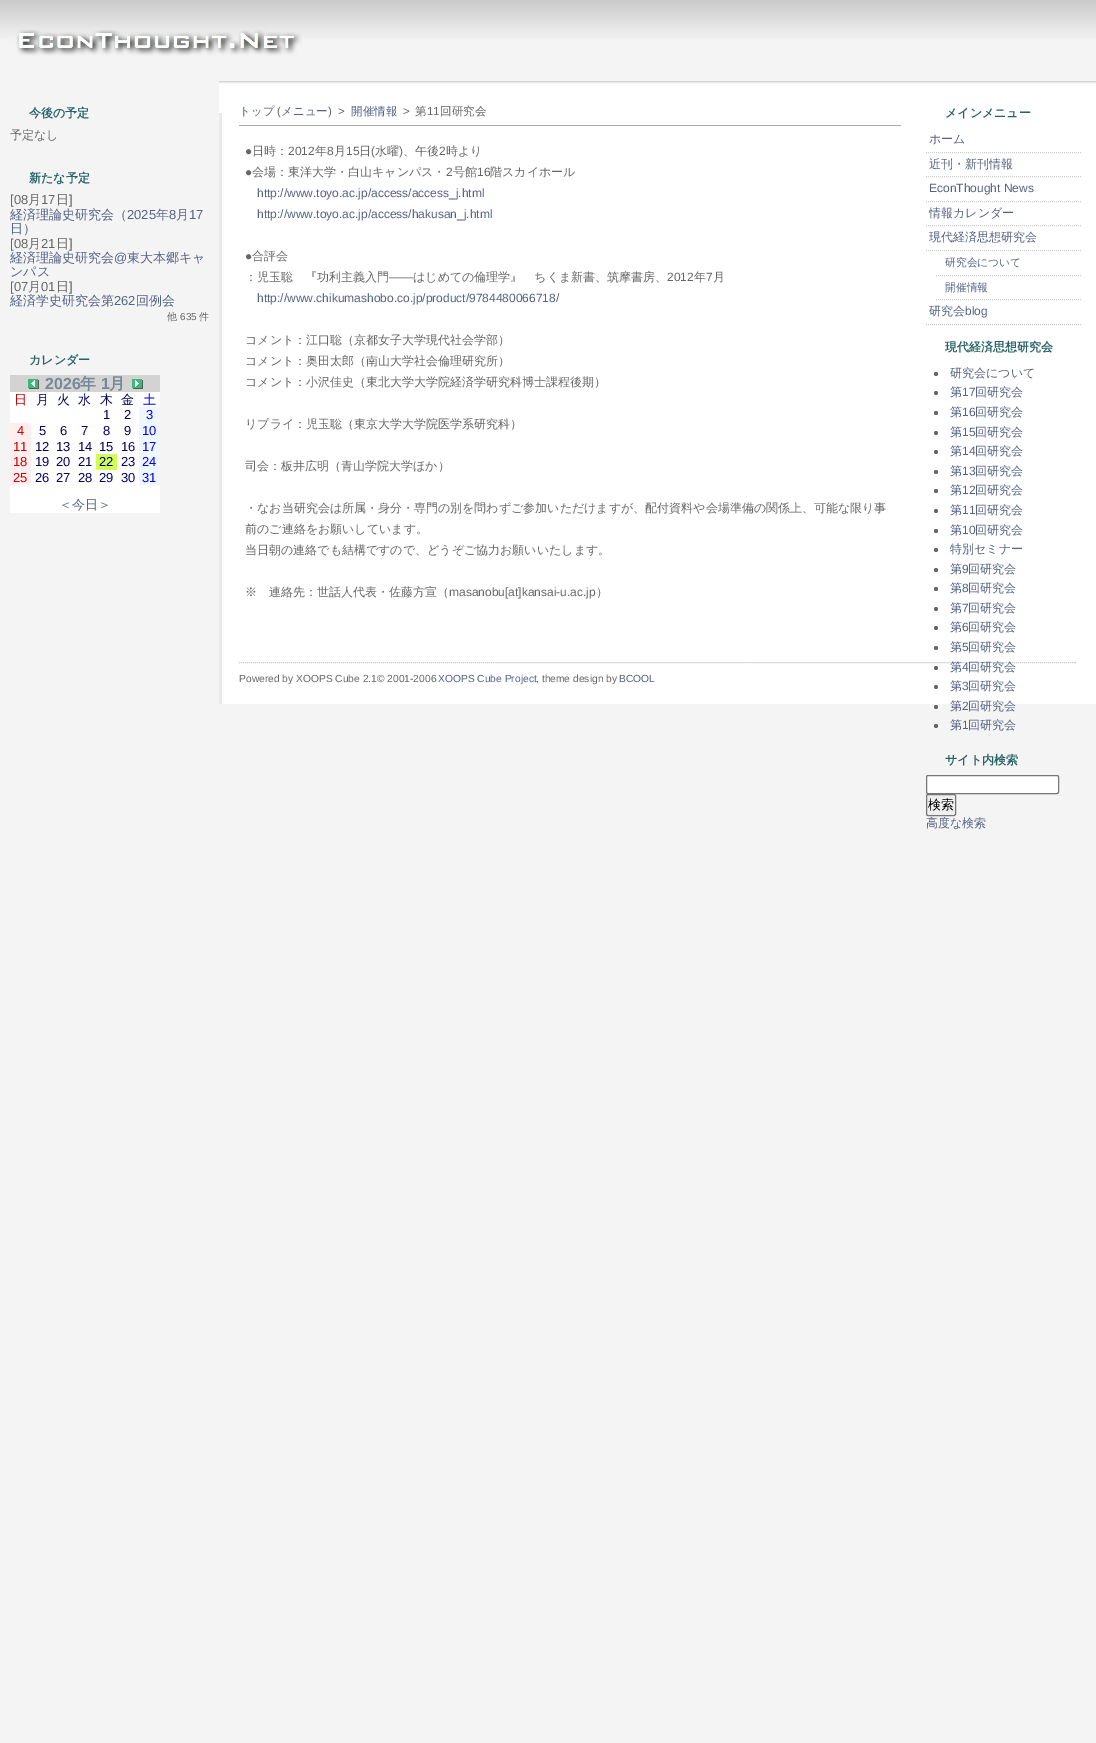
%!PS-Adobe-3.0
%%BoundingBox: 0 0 1096 1743
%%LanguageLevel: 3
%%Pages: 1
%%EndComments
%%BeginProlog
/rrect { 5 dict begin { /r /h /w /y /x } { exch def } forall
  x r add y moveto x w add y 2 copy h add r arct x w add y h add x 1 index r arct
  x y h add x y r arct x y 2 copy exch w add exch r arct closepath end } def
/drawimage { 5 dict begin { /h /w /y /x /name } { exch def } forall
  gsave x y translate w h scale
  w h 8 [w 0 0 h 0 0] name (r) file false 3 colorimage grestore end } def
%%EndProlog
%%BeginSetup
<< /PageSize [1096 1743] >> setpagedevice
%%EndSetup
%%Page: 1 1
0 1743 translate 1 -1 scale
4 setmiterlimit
0.957 setgray
0 0 1096 1743 rectfill
(images/1.raw) 0 0 1096 39 drawimage
(images/2.raw) 8 3 295 53 drawimage
1 setgray
10 392 150 121 rectfill
0.827 setgray
10 375 150 17 rectfill
(images/3.raw) 28 379 11 10 drawimage
(images/4.raw) 132 379 11 10 drawimage
0.933 0.969 1 setrgbcolor
139 407 21 78 rectfill
1 0.933 0.933 setrgbcolor
10 423 21 62 rectfill
0.82 1 0.325 setrgbcolor
96 454 21 16 rectfill
1 setgray
222 113 874 591 rectfill
0.918 setgray
219 113 3 591 rectfill
(images/5.raw) 219 81 877 32 drawimage
0.667 setgray
239 125 662 1 rectfill
0.804 setgray
[1 1] 0 setdash
newpath 926 152.5 moveto 1081 152.5 lineto stroke
newpath 926 176.5 moveto 1081 176.5 lineto stroke
newpath 926 201.5 moveto 1081 201.5 lineto stroke
newpath 926 225.5 moveto 1081 225.5 lineto stroke
newpath 926 250.5 moveto 1081 250.5 lineto stroke
newpath 936 275.5 moveto 1081 275.5 lineto stroke
newpath 936 299.5 moveto 1081 299.5 lineto stroke
newpath 926 324.5 moveto 1081 324.5 lineto stroke
0.4 setgray
newpath 936 374 2 0 360 arc closepath fill
newpath 936 393 2 0 360 arc closepath fill
newpath 936 413 2 0 360 arc closepath fill
newpath 936 433 2 0 360 arc closepath fill
newpath 936 452 2 0 360 arc closepath fill
newpath 936 472 2 0 360 arc closepath fill
newpath 936 491 2 0 360 arc closepath fill
newpath 936 511 2 0 360 arc closepath fill
newpath 936 531 2 0 360 arc closepath fill
newpath 936 550 2 0 360 arc closepath fill
newpath 936 570 2 0 360 arc closepath fill
newpath 936 589 2 0 360 arc closepath fill
newpath 936 609 2 0 360 arc closepath fill
newpath 936 628 2 0 360 arc closepath fill
newpath 936 648 2 0 360 arc closepath fill
newpath 936 668 2 0 360 arc closepath fill
newpath 936 687 2 0 360 arc closepath fill
newpath 936 707 2 0 360 arc closepath fill
newpath 936 726 2 0 360 arc closepath fill
1 setgray
926.5 775.5 132 18 1.5 rrect gsave fill grestore
0.463 setgray
[] 0 setdash
stroke
0.937 setgray
926.5 794.5 29 21 1.5 rrect gsave fill grestore
0.463 setgray
stroke
0.8 setgray
[1 1] 0 setdash
newpath 239 662.5 moveto 1076 662.5 lineto stroke
/WenQuanYiZenHei-Bold [12 0 0 -12 0 0] selectfont
0.157 0.388 0.404 setrgbcolor
29 117 moveto (今後の予定) show
/WenQuanYiZenHei-Medium [12 0 0 -12 0 0] selectfont
0.4 setgray
10 139 moveto (予定なし) show
/WenQuanYiZenHei-Bold [12 0 0 -12 0 0] selectfont
0.157 0.388 0.404 setrgbcolor
29 182 moveto (新たな予定) show
/LiberationSans-Regular [13 0 0 -13 0 0] selectfont
0.4 setgray
10 204 moveto ([08) show
/WenQuanYiZenHei-Medium [13 0 0 -13 0 0] selectfont
28 204 moveto (月) show
/LiberationSans-Regular [13 0 0 -13 0 0] selectfont
41 204 moveto (17) show
/WenQuanYiZenHei-Medium [13 0 0 -13 0 0] selectfont
56 204 moveto (日) show
/LiberationSans-Regular [13 0 0 -13 0 0] selectfont
69 204 moveto (]) show
/WenQuanYiZenHei-Medium [13 0 0 -13 0 0] selectfont
0.329 0.384 0.525 setrgbcolor
10 219 moveto (経済理論史研究会（) show
/LiberationSans-Regular [13 0 0 -13 0 0] selectfont
127 219 moveto (2025) show
/WenQuanYiZenHei-Medium [13 0 0 -13 0 0] selectfont
156 219 moveto (年) show
/LiberationSans-Regular [13 0 0 -13 0 0] selectfont
169 219 moveto (8) show
/WenQuanYiZenHei-Medium [13 0 0 -13 0 0] selectfont
176 219 moveto (月) show
/LiberationSans-Regular [13 0 0 -13 0 0] selectfont
189 219 moveto (17) show
/WenQuanYiZenHei-Medium [13 0 0 -13 0 0] selectfont
10 233 moveto (日）) show
/LiberationSans-Regular [13 0 0 -13 0 0] selectfont
0.4 setgray
10 248 moveto ([08) show
/WenQuanYiZenHei-Medium [13 0 0 -13 0 0] selectfont
28 248 moveto (月) show
/LiberationSans-Regular [13 0 0 -13 0 0] selectfont
41 248 moveto (21) show
/WenQuanYiZenHei-Medium [13 0 0 -13 0 0] selectfont
56 248 moveto (日) show
/LiberationSans-Regular [13 0 0 -13 0 0] selectfont
69 248 moveto (]) show
/WenQuanYiZenHei-Medium [13 0 0 -13 0 0] selectfont
0.329 0.384 0.525 setrgbcolor
10 262 moveto (経済理論史研究会) show
/LiberationSans-Regular [13 0 0 -13 0 0] selectfont
114 262 moveto (@) show
/WenQuanYiZenHei-Medium [13 0 0 -13 0 0] selectfont
127 262 moveto (東大本郷キャ) show
10 276 moveto (ンパス) show
/LiberationSans-Regular [13 0 0 -13 0 0] selectfont
0.4 setgray
10 291 moveto ([07) show
/WenQuanYiZenHei-Medium [13 0 0 -13 0 0] selectfont
28 291 moveto (月) show
/LiberationSans-Regular [13 0 0 -13 0 0] selectfont
41 291 moveto (01) show
/WenQuanYiZenHei-Medium [13 0 0 -13 0 0] selectfont
56 291 moveto (日) show
/LiberationSans-Regular [13 0 0 -13 0 0] selectfont
69 291 moveto (]) show
/WenQuanYiZenHei-Medium [13 0 0 -13 0 0] selectfont
0.329 0.384 0.525 setrgbcolor
10 305 moveto (経済学史研究会第) show
/LiberationSans-Regular [13 0 0 -13 0 0] selectfont
114 305 moveto (262) show
/WenQuanYiZenHei-Medium [13 0 0 -13 0 0] selectfont
136 305 moveto (回例会) show
/WenQuanYiZenHei-Medium [10 0 0 -10 0 0] selectfont
0.4 setgray
167 320 moveto (他) show
/LiberationSans-Regular [10 0 0 -10 0 0] selectfont
180 320 moveto (635) show
/WenQuanYiZenHei-Medium [10 0 0 -10 0 0] selectfont
199 320 moveto (件) show
/WenQuanYiZenHei-Bold [12 0 0 -12 0 0] selectfont
0.157 0.388 0.404 setrgbcolor
29 364 moveto (カレンダー) show
/LiberationSans-Bold [16 0 0 -16 0 0] selectfont
0.467 0.533 0.6 setrgbcolor
45 389 moveto (2026) show
/WenQuanYiZenHei-Bold [16 0 0 -16 0 0] selectfont
80 389 moveto (年) show
/LiberationSans-Bold [16 0 0 -16 0 0] selectfont
101 389 moveto (1) show
/WenQuanYiZenHei-Bold [16 0 0 -16 0 0] selectfont
109 389 moveto (月) show
/WenQuanYiZenHei-Medium [13 0 0 -13 0 0] selectfont
0.8 0 0 setrgbcolor
14 404 moveto (日) show
0 0 0.4 setrgbcolor
36 404 moveto (月) show
57 404 moveto (火) show
78 404 moveto (水) show
100 404 moveto (木) show
121 404 moveto (金) show
0 0 1 setrgbcolor
143 404 moveto (土) show
/LiberationSans-Regular [13 0 0 -13 0 0] selectfont
0 0 0.4 setrgbcolor
103 419 moveto (1) show
124 419 moveto (2) show
0 0 1 setrgbcolor
146 419 moveto (3) show
0.8 0 0 setrgbcolor
17 435 moveto (4) show
0 0 0.4 setrgbcolor
39 435 moveto (5) show
60 435 moveto (6) show
81 435 moveto (7) show
103 435 moveto (8) show
124 435 moveto (9) show
0 0 1 setrgbcolor
142 435 moveto (10) show
0.8 0 0 setrgbcolor
13 451 moveto (11) show
0 0 0.4 setrgbcolor
35 451 moveto (12) show
56 451 moveto (13) show
78 451 moveto (14) show
99 451 moveto (15) show
121 451 moveto (16) show
0 0 1 setrgbcolor
142 451 moveto (17) show
0.8 0 0 setrgbcolor
13 466 moveto (18) show
0 0 0.4 setrgbcolor
35 466 moveto (19) show
56 466 moveto (20) show
78 466 moveto (21) show
99 466 moveto (22) show
121 466 moveto (23) show
0 0 1 setrgbcolor
142 466 moveto (24) show
0.8 0 0 setrgbcolor
13 482 moveto (25) show
0 0 0.4 setrgbcolor
35 482 moveto (26) show
56 482 moveto (27) show
78 482 moveto (28) show
99 482 moveto (29) show
121 482 moveto (30) show
0 0 1 setrgbcolor
142 482 moveto (31) show
/WenQuanYiZenHei-Medium [13 0 0 -13 0 0] selectfont
0.329 0.384 0.525 setrgbcolor
59 509 moveto (＜今日＞) show
/WenQuanYiZenHei-Medium [11.5 0 0 -11.5 0 0] selectfont
239 115 moveto (トップ) show
/LiberationSans-Regular [11.5 0 0 -11.5 0 0] selectfont
0.4 setgray
277 115 moveto (\() show
/WenQuanYiZenHei-Medium [11.5 0 0 -11.5 0 0] selectfont
0.329 0.384 0.525 setrgbcolor
281 115 moveto (メニュー) show
/LiberationSans-Regular [11.5 0 0 -11.5 0 0] selectfont
0.4 setgray
328 115 moveto (\)) show
338 115 moveto (>) show
/WenQuanYiZenHei-Medium [11.5 0 0 -11.5 0 0] selectfont
0.329 0.384 0.525 setrgbcolor
351 115 moveto (開催情報) show
/LiberationSans-Regular [11.5 0 0 -11.5 0 0] selectfont
0.4 setgray
403 115 moveto (>) show
/WenQuanYiZenHei-Medium [11.5 0 0 -11.5 0 0] selectfont
415 115 moveto (第) show
/LiberationSans-Regular [11.5 0 0 -11.5 0 0] selectfont
427 115 moveto (11) show
/WenQuanYiZenHei-Medium [11.5 0 0 -11.5 0 0] selectfont
440 115 moveto (回研究会) show
/LiberationSans-Regular [12 0 0 -12 0 0] selectfont
245 155 moveto (●) show
/WenQuanYiZenHei-Medium [12 0 0 -12 0 0] selectfont
252 155 moveto (日時：) show
/LiberationSans-Regular [12 0 0 -12 0 0] selectfont
288 155 moveto (2012) show
/WenQuanYiZenHei-Medium [12 0 0 -12 0 0] selectfont
315 155 moveto (年) show
/LiberationSans-Regular [12 0 0 -12 0 0] selectfont
327 155 moveto (8) show
/WenQuanYiZenHei-Medium [12 0 0 -12 0 0] selectfont
334 155 moveto (月) show
/LiberationSans-Regular [12 0 0 -12 0 0] selectfont
346 155 moveto (15) show
/WenQuanYiZenHei-Medium [12 0 0 -12 0 0] selectfont
359 155 moveto (日) show
/LiberationSans-Regular [12 0 0 -12 0 0] selectfont
371 155 moveto (\() show
/WenQuanYiZenHei-Medium [12 0 0 -12 0 0] selectfont
375 155 moveto (水曜) show
/LiberationSans-Regular [12 0 0 -12 0 0] selectfont
399 155 moveto (\)) show
/WenQuanYiZenHei-Medium [12 0 0 -12 0 0] selectfont
403 155 moveto (、午後) show
/LiberationSans-Regular [12 0 0 -12 0 0] selectfont
439 155 moveto (2) show
/WenQuanYiZenHei-Medium [12 0 0 -12 0 0] selectfont
446 155 moveto (時より) show
/LiberationSans-Regular [12 0 0 -12 0 0] selectfont
245 176 moveto (●) show
/WenQuanYiZenHei-Medium [12 0 0 -12 0 0] selectfont
252 176 moveto (会場：東洋大学・白山キャンパス・) show
/LiberationSans-Regular [12 0 0 -12 0 0] selectfont
446 176 moveto (2) show
/WenQuanYiZenHei-Medium [12 0 0 -12 0 0] selectfont
453 176 moveto (号館) show
/LiberationSans-Regular [12 0 0 -12 0 0] selectfont
477 176 moveto (16) show
/WenQuanYiZenHei-Medium [12 0 0 -12 0 0] selectfont
490 176 moveto (階スカイホール) show
/LiberationSans-Regular [12 0 0 -12 0 0] selectfont
0.329 0.384 0.525 setrgbcolor
257 197 moveto (http://www.toyo.ac.jp/access/access_j.html) show
257 218 moveto (http://www.toyo.ac.jp/access/hakusan_j.html) show
0.4 setgray
245 260 moveto (●) show
/WenQuanYiZenHei-Medium [12 0 0 -12 0 0] selectfont
252 260 moveto (合評会) show
245 281 moveto (：児玉聡　『功利主義入門) show
/LiberationSans-Regular [12 0 0 -12 0 0] selectfont
389 281 moveto (――) show
/WenQuanYiZenHei-Medium [12 0 0 -12 0 0] selectfont
413 281 moveto (はじめての倫理学』　ちくま新書、筑摩書房、) show
/LiberationSans-Regular [12 0 0 -12 0 0] selectfont
667 281 moveto (2012) show
/WenQuanYiZenHei-Medium [12 0 0 -12 0 0] selectfont
694 281 moveto (年) show
/LiberationSans-Regular [12 0 0 -12 0 0] selectfont
706 281 moveto (7) show
/WenQuanYiZenHei-Medium [12 0 0 -12 0 0] selectfont
713 281 moveto (月) show
/LiberationSans-Regular [12 0 0 -12 0 0] selectfont
0.329 0.384 0.525 setrgbcolor
257 302 moveto (http://www.chikumashobo.co.jp/product/9784480066718/) show
/WenQuanYiZenHei-Medium [12 0 0 -12 0 0] selectfont
0.4 setgray
245 344 moveto (コメント：江口聡（京都女子大学現代社会学部）) show
245 365 moveto (コメント：奥田太郎（南山大学社会倫理研究所）) show
245 386 moveto (コメント：小沢佳史（東北大学大学院経済学研究科博士課程後期）) show
245 428 moveto (リプライ：児玉聡（東京大学大学院医学系研究科）) show
245 470 moveto (司会：板井広明（青山学院大学ほか）) show
245 512 moveto (・なお当研究会は所属・身分・専門の別を問わずご参加いただけますが、配付資料や会場準備の関係上、可能な限り事) show
245 533 moveto (前のご連絡をお願いしています。) show
245 554 moveto (当日朝の連絡でも結構ですので、どうぞご協力お願いいたします。) show
245 596 moveto (※　連絡先：世話人代表・佐藤方宣（) show
/LiberationSans-Regular [12 0 0 -12 0 0] selectfont
449 596 moveto (masanobu[at]kansai-u.ac.jp) show
/WenQuanYiZenHei-Medium [12 0 0 -12 0 0] selectfont
596 596 moveto (）) show
/WenQuanYiZenHei-Bold [12 0 0 -12 0 0] selectfont
0.157 0.388 0.404 setrgbcolor
945 117 moveto (メインメニュー) show
/WenQuanYiZenHei-Medium [12 0 0 -12 0 0] selectfont
0.329 0.384 0.525 setrgbcolor
929 143 moveto (ホーム) show
929 168 moveto (近刊・新刊情報) show
/LiberationSans-Regular [12 0 0 -12 0 0] selectfont
929 192 moveto (EconThought News) show
/WenQuanYiZenHei-Medium [12 0 0 -12 0 0] selectfont
929 217 moveto (情報カレンダー) show
929 241 moveto (現代経済思想研究会) show
/WenQuanYiZenHei-Medium [10.75 0 0 -10.75 0 0] selectfont
945 266 moveto (研究会について) show
945 291 moveto (開催情報) show
/WenQuanYiZenHei-Medium [12 0 0 -12 0 0] selectfont
929 315 moveto (研究会) show
/LiberationSans-Regular [12 0 0 -12 0 0] selectfont
965 315 moveto (blog) show
/WenQuanYiZenHei-Bold [12 0 0 -12 0 0] selectfont
0.157 0.388 0.404 setrgbcolor
945 351 moveto (現代経済思想研究会) show
/WenQuanYiZenHei-Medium [12 0 0 -12 0 0] selectfont
0.329 0.384 0.525 setrgbcolor
950 377 moveto (研究会について) show
950 396 moveto (第) show
/LiberationSans-Regular [12 0 0 -12 0 0] selectfont
962 396 moveto (17) show
/WenQuanYiZenHei-Medium [12 0 0 -12 0 0] selectfont
975 396 moveto (回研究会) show
950 416 moveto (第) show
/LiberationSans-Regular [12 0 0 -12 0 0] selectfont
962 416 moveto (16) show
/WenQuanYiZenHei-Medium [12 0 0 -12 0 0] selectfont
975 416 moveto (回研究会) show
950 436 moveto (第) show
/LiberationSans-Regular [12 0 0 -12 0 0] selectfont
962 436 moveto (15) show
/WenQuanYiZenHei-Medium [12 0 0 -12 0 0] selectfont
975 436 moveto (回研究会) show
950 455 moveto (第) show
/LiberationSans-Regular [12 0 0 -12 0 0] selectfont
962 455 moveto (14) show
/WenQuanYiZenHei-Medium [12 0 0 -12 0 0] selectfont
975 455 moveto (回研究会) show
950 475 moveto (第) show
/LiberationSans-Regular [12 0 0 -12 0 0] selectfont
962 475 moveto (13) show
/WenQuanYiZenHei-Medium [12 0 0 -12 0 0] selectfont
975 475 moveto (回研究会) show
950 494 moveto (第) show
/LiberationSans-Regular [12 0 0 -12 0 0] selectfont
962 494 moveto (12) show
/WenQuanYiZenHei-Medium [12 0 0 -12 0 0] selectfont
975 494 moveto (回研究会) show
950 514 moveto (第) show
/LiberationSans-Regular [12 0 0 -12 0 0] selectfont
962 514 moveto (11) show
/WenQuanYiZenHei-Medium [12 0 0 -12 0 0] selectfont
975 514 moveto (回研究会) show
950 534 moveto (第) show
/LiberationSans-Regular [12 0 0 -12 0 0] selectfont
962 534 moveto (10) show
/WenQuanYiZenHei-Medium [12 0 0 -12 0 0] selectfont
975 534 moveto (回研究会) show
950 553 moveto (特別セミナー) show
950 573 moveto (第) show
/LiberationSans-Regular [12 0 0 -12 0 0] selectfont
962 573 moveto (9) show
/WenQuanYiZenHei-Medium [12 0 0 -12 0 0] selectfont
968 573 moveto (回研究会) show
950 592 moveto (第) show
/LiberationSans-Regular [12 0 0 -12 0 0] selectfont
962 592 moveto (8) show
/WenQuanYiZenHei-Medium [12 0 0 -12 0 0] selectfont
968 592 moveto (回研究会) show
950 612 moveto (第) show
/LiberationSans-Regular [12 0 0 -12 0 0] selectfont
962 612 moveto (7) show
/WenQuanYiZenHei-Medium [12 0 0 -12 0 0] selectfont
968 612 moveto (回研究会) show
950 631 moveto (第) show
/LiberationSans-Regular [12 0 0 -12 0 0] selectfont
962 631 moveto (6) show
/WenQuanYiZenHei-Medium [12 0 0 -12 0 0] selectfont
968 631 moveto (回研究会) show
950 651 moveto (第) show
/LiberationSans-Regular [12 0 0 -12 0 0] selectfont
962 651 moveto (5) show
/WenQuanYiZenHei-Medium [12 0 0 -12 0 0] selectfont
968 651 moveto (回研究会) show
950 671 moveto (第) show
/LiberationSans-Regular [12 0 0 -12 0 0] selectfont
962 671 moveto (4) show
/WenQuanYiZenHei-Medium [12 0 0 -12 0 0] selectfont
968 671 moveto (回研究会) show
950 690 moveto (第) show
/LiberationSans-Regular [12 0 0 -12 0 0] selectfont
962 690 moveto (3) show
/WenQuanYiZenHei-Medium [12 0 0 -12 0 0] selectfont
968 690 moveto (回研究会) show
950 710 moveto (第) show
/LiberationSans-Regular [12 0 0 -12 0 0] selectfont
962 710 moveto (2) show
/WenQuanYiZenHei-Medium [12 0 0 -12 0 0] selectfont
968 710 moveto (回研究会) show
950 729 moveto (第) show
/LiberationSans-Regular [12 0 0 -12 0 0] selectfont
962 729 moveto (1) show
/WenQuanYiZenHei-Medium [12 0 0 -12 0 0] selectfont
968 729 moveto (回研究会) show
/WenQuanYiZenHei-Bold [12 0 0 -12 0 0] selectfont
0.157 0.388 0.404 setrgbcolor
945 764 moveto (サイト内検索) show
/WenQuanYiZenHei-Medium [13 0 0 -13 0 0] selectfont
0 setgray
928 809 moveto (検索) show
/WenQuanYiZenHei-Medium [12 0 0 -12 0 0] selectfont
0.329 0.384 0.525 setrgbcolor
926 827 moveto (高度な検索) show
/LiberationSans-Regular [10.25 0 0 -10.25 0 0] selectfont
0.4 setgray
239 682 moveto (Powered by XOOPS Cube 2.1© 2001-2006) show
0.329 0.384 0.525 setrgbcolor
438 682 moveto (XOOPS Cube Project) show
0.4 setgray
536 682 moveto (, theme design by) show
0.329 0.384 0.525 setrgbcolor
619 682 moveto (BCOOL) show
showpage
%%EOF
